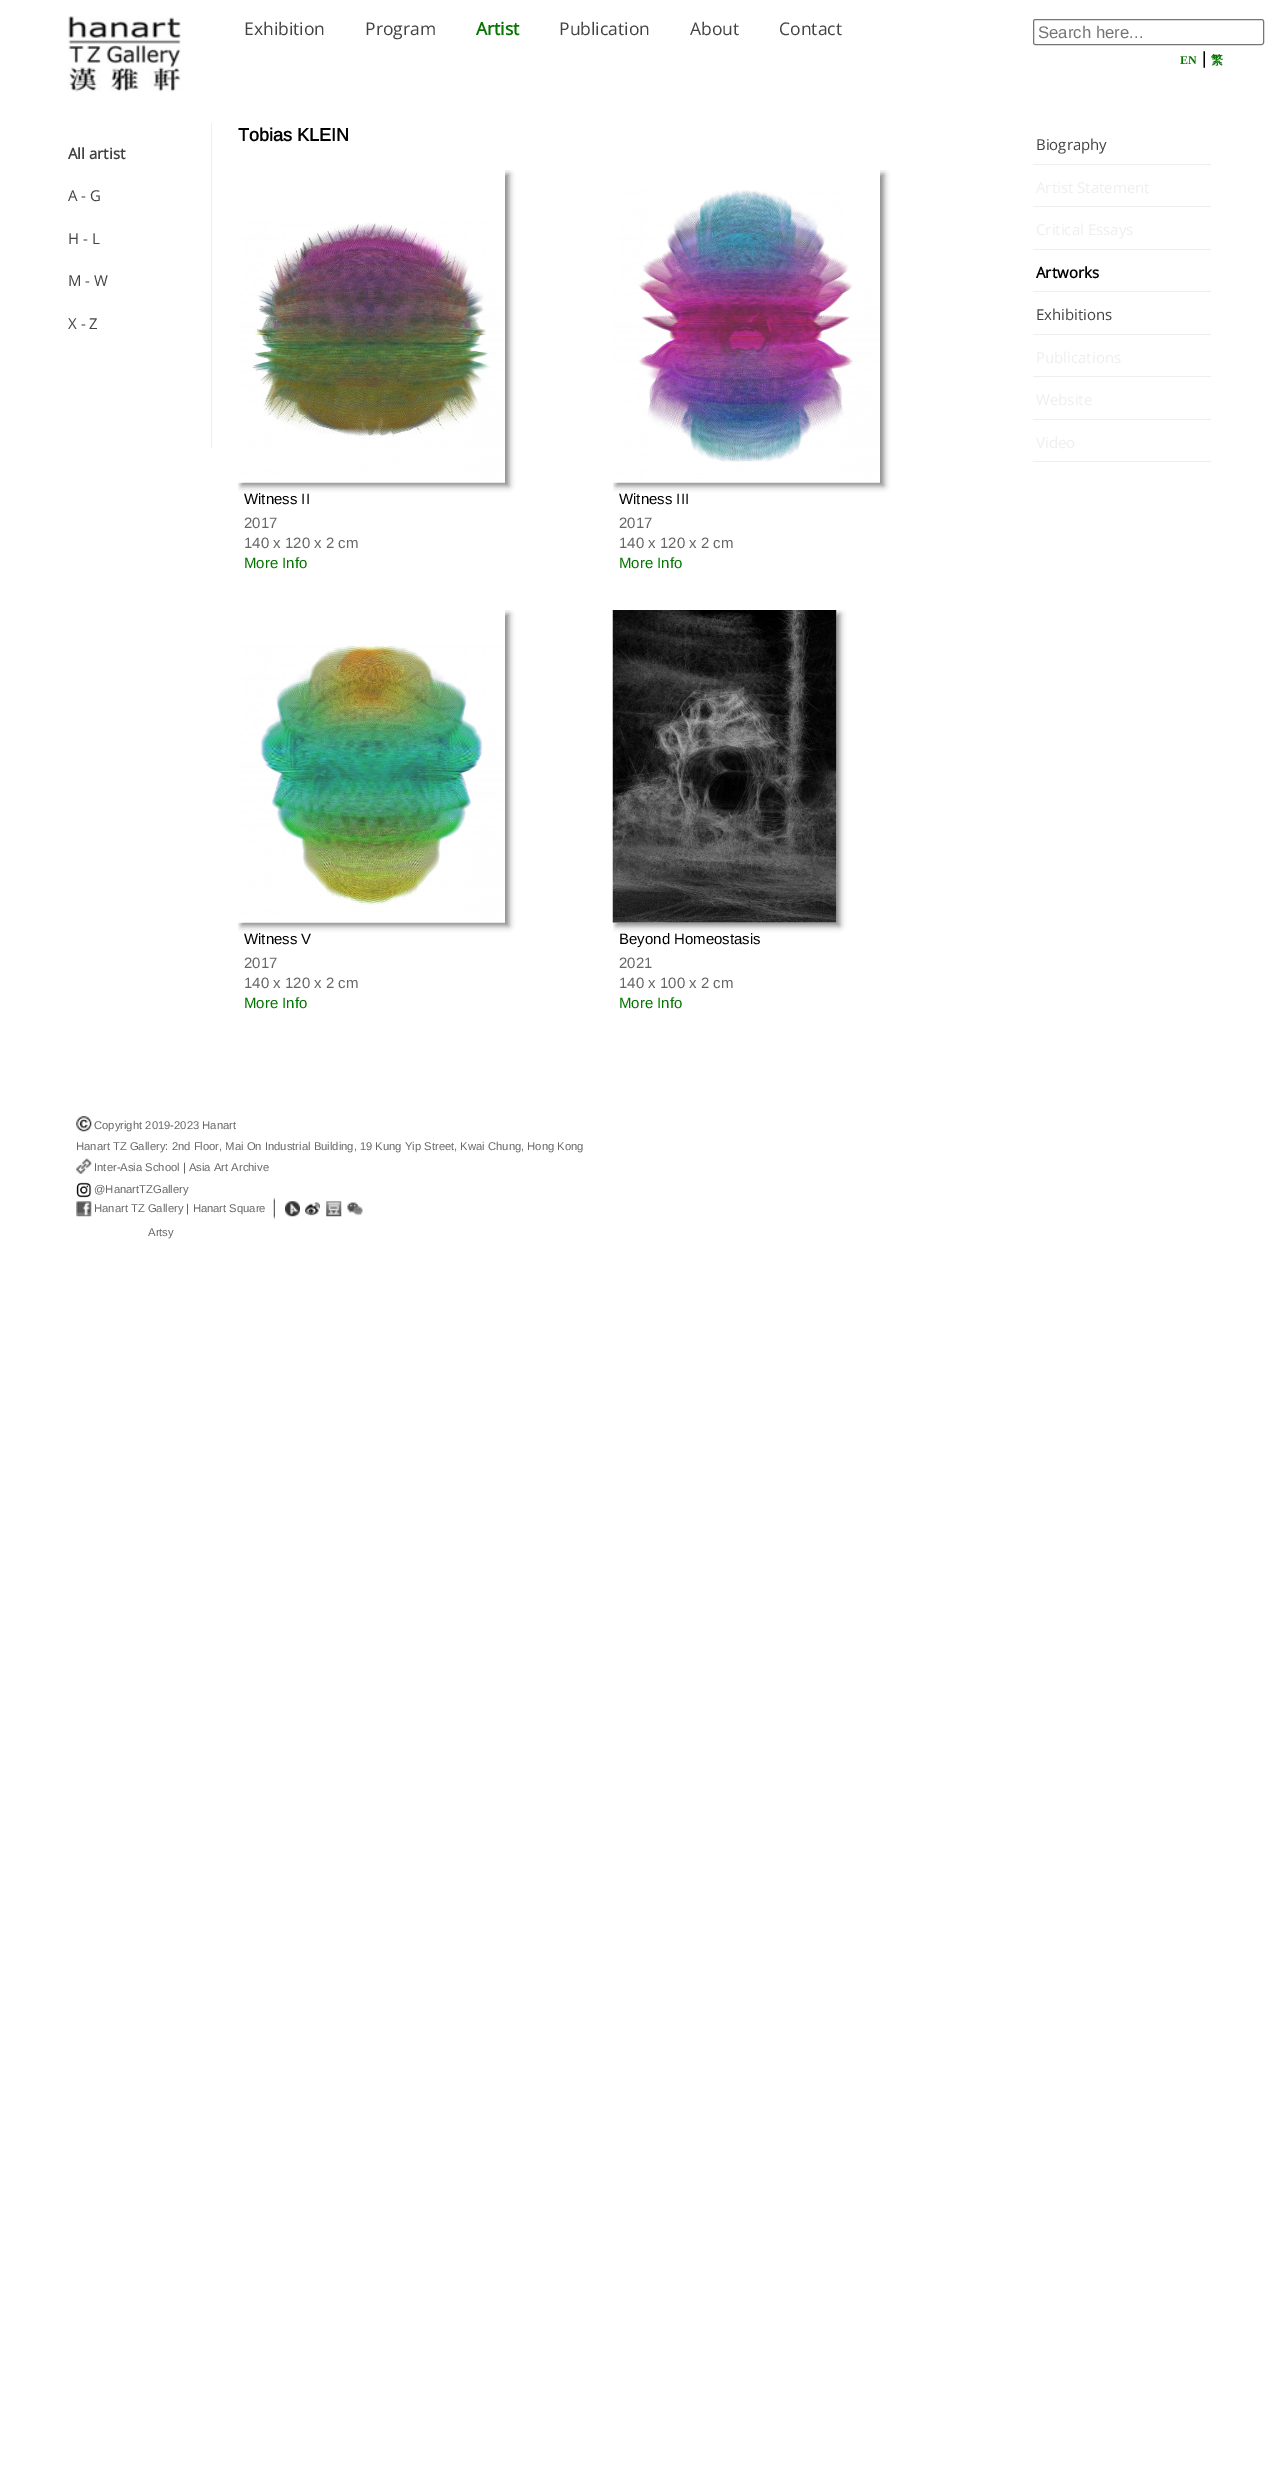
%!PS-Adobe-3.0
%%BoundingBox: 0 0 1285 2481
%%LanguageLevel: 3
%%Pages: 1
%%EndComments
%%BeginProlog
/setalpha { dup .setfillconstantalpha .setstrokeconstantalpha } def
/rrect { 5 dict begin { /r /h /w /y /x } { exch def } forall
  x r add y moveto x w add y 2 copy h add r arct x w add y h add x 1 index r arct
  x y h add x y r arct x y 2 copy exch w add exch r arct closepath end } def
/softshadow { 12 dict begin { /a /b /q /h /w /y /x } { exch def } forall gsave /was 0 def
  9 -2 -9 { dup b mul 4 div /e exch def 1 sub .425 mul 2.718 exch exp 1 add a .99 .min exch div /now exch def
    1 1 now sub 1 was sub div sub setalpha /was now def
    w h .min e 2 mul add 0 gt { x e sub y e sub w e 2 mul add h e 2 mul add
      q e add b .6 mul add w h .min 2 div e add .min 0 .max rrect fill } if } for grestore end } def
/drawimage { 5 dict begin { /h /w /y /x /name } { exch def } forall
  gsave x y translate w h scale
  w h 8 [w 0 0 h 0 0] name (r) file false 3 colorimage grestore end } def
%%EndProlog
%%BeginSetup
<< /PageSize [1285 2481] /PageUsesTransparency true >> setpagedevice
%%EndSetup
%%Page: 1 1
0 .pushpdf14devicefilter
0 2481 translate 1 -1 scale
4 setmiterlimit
1 setgray
0 0 1285 2481 rectfill
(images/1.raw) 68 16 113 76 drawimage
0.463 setgray
1033.5 19.5 230 25 2 rrect stroke
0.933 setgray
211 123 1 325 rectfill
gsave
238 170 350 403 rectclip
newpath 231 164 moveto 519 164 lineto 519 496 lineto 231 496 lineto closepath 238 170 moveto 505 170 lineto 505 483 lineto 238 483 lineto closepath eoclip newpath
0.533 setgray
241 174 268 312 0 3 1 softshadow
grestore
(images/2.raw) 238 222 267 261 drawimage
gsave
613 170 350 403 rectclip
newpath 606 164 moveto 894 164 lineto 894 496 lineto 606 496 lineto closepath 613 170 moveto 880 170 lineto 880 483 lineto 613 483 lineto closepath eoclip newpath
0.533 setgray
616 174 268 312 0 3 1 softshadow
grestore
(images/3.raw) 613 190 267 293 drawimage
gsave
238 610 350 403 rectclip
newpath 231 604 moveto 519 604 lineto 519 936 lineto 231 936 lineto closepath 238 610 moveto 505 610 lineto 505 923 lineto 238 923 lineto closepath eoclip newpath
0.533 setgray
241 614 268 312 0 3 1 softshadow
grestore
(images/4.raw) 238 645 267 278 drawimage
gsave
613 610 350 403 rectclip
0.533 setgray
616 614 224 312 0 3 1 softshadow
grestore
(images/5.raw) 612 610 225 313 drawimage
1033 164 178 1 rectfill
1033 206 178 1 rectfill
1033 249 178 1 rectfill
1033 291 178 1 rectfill
1033 334 178 1 rectfill
1033 376 178 1 rectfill
1033 419 178 1 rectfill
1033 461 178 1 rectfill
(images/6.raw) 76 1116 16 16 drawimage
(images/7.raw) 76 1158 16 16 drawimage
(images/8.raw) 76 1182 16 16 drawimage
(images/9.raw) 76 1201 16 16 drawimage
(images/10.raw) 273 1197 2 23 drawimage
(images/11.raw) 285 1201 15 16 drawimage
(images/12.raw) 305 1202 15 14 drawimage
(images/13.raw) 326 1201 16 16 drawimage
(images/14.raw) 347 1202 16 14 drawimage
/OpenSans-Regular [17.5 0 0 -17.5 0 0] selectfont
0.259 setgray
244 35 moveto (Exhibition) show
365 35 moveto (Program) show
/OpenSans-Bold [17.5 0 0 -17.5 0 0] selectfont
0.012 0.459 0 setrgbcolor
476 35 moveto (Artist) show
/OpenSans-Regular [17.5 0 0 -17.5 0 0] selectfont
0.259 setgray
559 35 moveto (Publication) show
690 35 moveto (About) show
779 35 moveto (Contact) show
/LiberationSans-Regular [16.75 0 0 -16.75 0 0] selectfont
0.459 setgray
1038 38 moveto (Search here...) show
/LiberationSerif-Bold [12 0 0 -12 0 0] selectfont
0.012 0.459 0 setrgbcolor
1180 64 moveto (EN) show
/Arimo-Regular [17.5 0 0 -17.5 0 0] selectfont
0 setgray
1202 64 moveto (|) show
/WenQuanYiZenHei-Bold [12 0 0 -12 0 0] selectfont
0.012 0.459 0 setrgbcolor
1211 64 moveto (繁) show
/OpenSans-Bold [15 0 0 -15 0 0] selectfont
0.259 setgray
68 159 moveto (All artist) show
/OpenSans-Regular [15 0 0 -15 0 0] selectfont
68 201 moveto (A - G) show
68 244 moveto (H - L) show
68 286 moveto (M - W) show
68 329 moveto (X - Z) show
/Arimo-Bold [18 0 0 -18 0 0] selectfont
0 setgray
238 141 moveto (Tobias KLEIN) show
/Arimo-Regular [15 0 0 -15 0 0] selectfont
244 504 moveto (Witness II) show
0.4 setgray
244 528 moveto (2017) show
244 548 moveto (140 x 120 x 2 cm) show
0.012 0.459 0 setrgbcolor
244 568 moveto (More Info) show
0 setgray
619 504 moveto (Witness III) show
0.4 setgray
619 528 moveto (2017) show
619 548 moveto (140 x 120 x 2 cm) show
0.012 0.459 0 setrgbcolor
619 568 moveto (More Info) show
0 setgray
244 944 moveto (Witness V) show
0.4 setgray
244 968 moveto (2017) show
244 988 moveto (140 x 120 x 2 cm) show
0.012 0.459 0 setrgbcolor
244 1008 moveto (More Info) show
0 setgray
619 944 moveto (Beyond Homeostasis) show
0.4 setgray
619 968 moveto (2021) show
619 988 moveto (140 x 100 x 2 cm) show
0.012 0.459 0 setrgbcolor
619 1008 moveto (More Info) show
/OpenSans-Regular [15 0 0 -15 0 0] selectfont
0.259 setgray
1036 150 moveto (Biography) show
0.933 setgray
1036 193 moveto (Artist Statement) show
1036 235 moveto (Critical Essays) show
/OpenSans-Bold [15 0 0 -15 0 0] selectfont
0 setgray
1036 278 moveto (Artworks) show
/OpenSans-Regular [15 0 0 -15 0 0] selectfont
0.259 setgray
1036 320 moveto (Exhibitions) show
0.933 setgray
1036 363 moveto (Publications) show
1036 405 moveto (Website) show
1036 448 moveto (Video) show
/Arimo-Regular [11.25 0 0 -11.25 0 0] selectfont
0.4 setgray
94 1129 moveto (Copyright 2019-2023 Hanart) show
76 1150 moveto (Hanart TZ Gallery: 2nd Floor, Mai On Industrial Building, 19 Kung Yip Street, Kwai Chung, Hong Kong) show
94 1171 moveto (Inter-Asia School | Asia Art Archive) show
94 1193 moveto (@HanartTZGallery) show
94 1212 moveto (Hanart TZ Gallery | Hanart Square) show
148 1236 moveto (Artsy) show
.poppdf14devicefilter showpage
%%EOF
